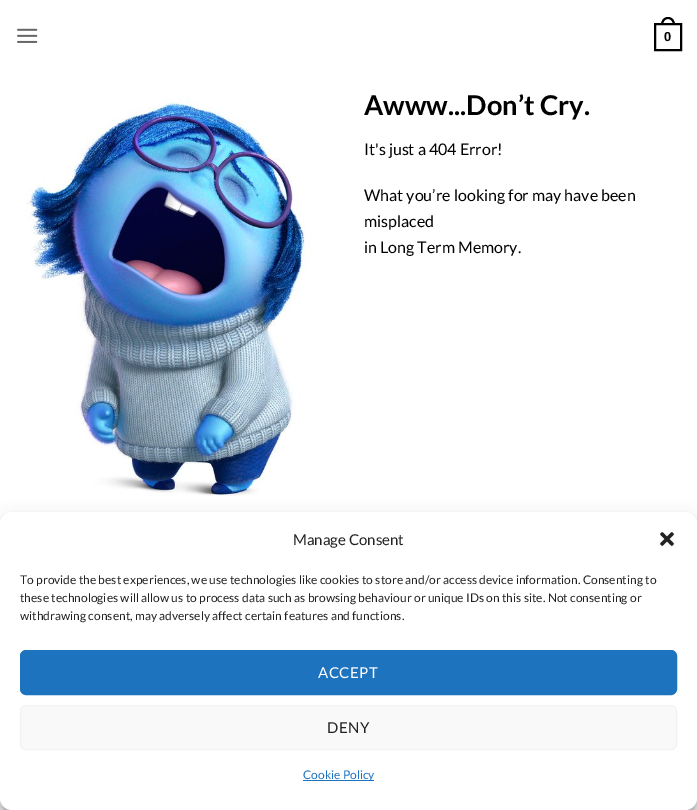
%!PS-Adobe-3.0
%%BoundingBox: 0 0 697 810
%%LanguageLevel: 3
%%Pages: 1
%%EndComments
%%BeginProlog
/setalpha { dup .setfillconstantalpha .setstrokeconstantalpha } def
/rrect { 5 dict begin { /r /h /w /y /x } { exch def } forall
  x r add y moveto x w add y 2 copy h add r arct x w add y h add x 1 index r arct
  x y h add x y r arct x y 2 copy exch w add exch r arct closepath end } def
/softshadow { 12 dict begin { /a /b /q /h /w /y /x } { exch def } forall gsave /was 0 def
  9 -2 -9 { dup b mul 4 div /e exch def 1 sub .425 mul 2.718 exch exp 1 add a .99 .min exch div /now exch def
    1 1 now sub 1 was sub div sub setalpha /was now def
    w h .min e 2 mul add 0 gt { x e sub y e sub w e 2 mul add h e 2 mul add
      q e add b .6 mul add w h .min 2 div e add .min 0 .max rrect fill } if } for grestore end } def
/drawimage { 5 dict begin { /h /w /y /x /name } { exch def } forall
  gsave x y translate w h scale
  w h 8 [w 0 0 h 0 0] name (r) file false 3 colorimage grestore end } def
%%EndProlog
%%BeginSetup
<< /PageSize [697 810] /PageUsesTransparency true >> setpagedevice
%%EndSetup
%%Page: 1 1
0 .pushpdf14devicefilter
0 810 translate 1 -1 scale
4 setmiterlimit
1 setgray
0 0 697 810 rectfill
(images/1.raw) 17 28 21 15 drawimage
0 setgray
2 setlinewidth
655 24 26 26 rectstroke
newpath 668 17 moveto 672.5 17 675 21 675 25 curveto 661 25 lineto 661 21 663.5 17 668 17 curveto closepath 668 19 moveto 671.5 19 673 22 673 25 curveto 663 25 lineto 663 22 664.5 19 668 19 curveto closepath eofill
(images/2.raw) 25 97 286 399 drawimage
0 518 697 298 12 3 0.23 softshadow
0 522 697 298 12 10 0.19 softshadow
0.502 setgray
627 736 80 60 2 2.5 1 softshadow
1 setgray
0 512 697 298 12 rrect fill
(images/3.raw) 660 532 14 14 drawimage
0.118 0.451 0.745 setrgbcolor
20.5 650.5 656 44 5.5 rrect gsave fill grestore
1 setlinewidth
stroke
0.976 setgray
20.5 705.5 656 44 5.5 rrect gsave fill grestore
0.949 setgray
stroke
0.118 0.451 0.745 setrgbcolor
303 780 71 1 rectfill
/LiberationSans-Bold [13 0 0 -13 0 0] selectfont
0 setgray
664 41 moveto (0) show
/Lato-Bold [27.25 0 0 -27.25 0 0] selectfont
364 115 moveto (Awww...Don’t Cry.) show
/Lato-Regular [16 0 0 -16 0 0] selectfont
364 155 moveto (It's just a 404 Error!) show
364 201 moveto (What you’re looking for may have been) show
364 227 moveto (misplaced) show
364 253 moveto (in Long Term Memory.) show
/Lato-Regular [15 0 0 -15 0 0] selectfont
0.133 setgray
293 545 moveto (Manage Consent) show
/Lato-Regular [12 0 0 -12 0 0] selectfont
20 584 moveto (To provide the best experiences, we use technologies like cookies to store and/or access device information. Consenting to) show
20 602 moveto (these technologies will allow us to process data such as browsing behaviour or unique IDs on this site. Not consenting or) show
20 620 moveto (withdrawing consent, may adversely affect certain features and functions.) show
/Lato-Regular [15 0 0 -15 0 0] selectfont
1 setgray
318 678 moveto 0.5 0 (ACCEPT) ashow
0.133 setgray
327 733 moveto 0.5 0 (DENY) ashow
/Lato-Regular [12 0 0 -12 0 0] selectfont
0.118 0.451 0.745 setrgbcolor
303 779 moveto (Cookie Policy) show
.poppdf14devicefilter showpage
%%EOF
